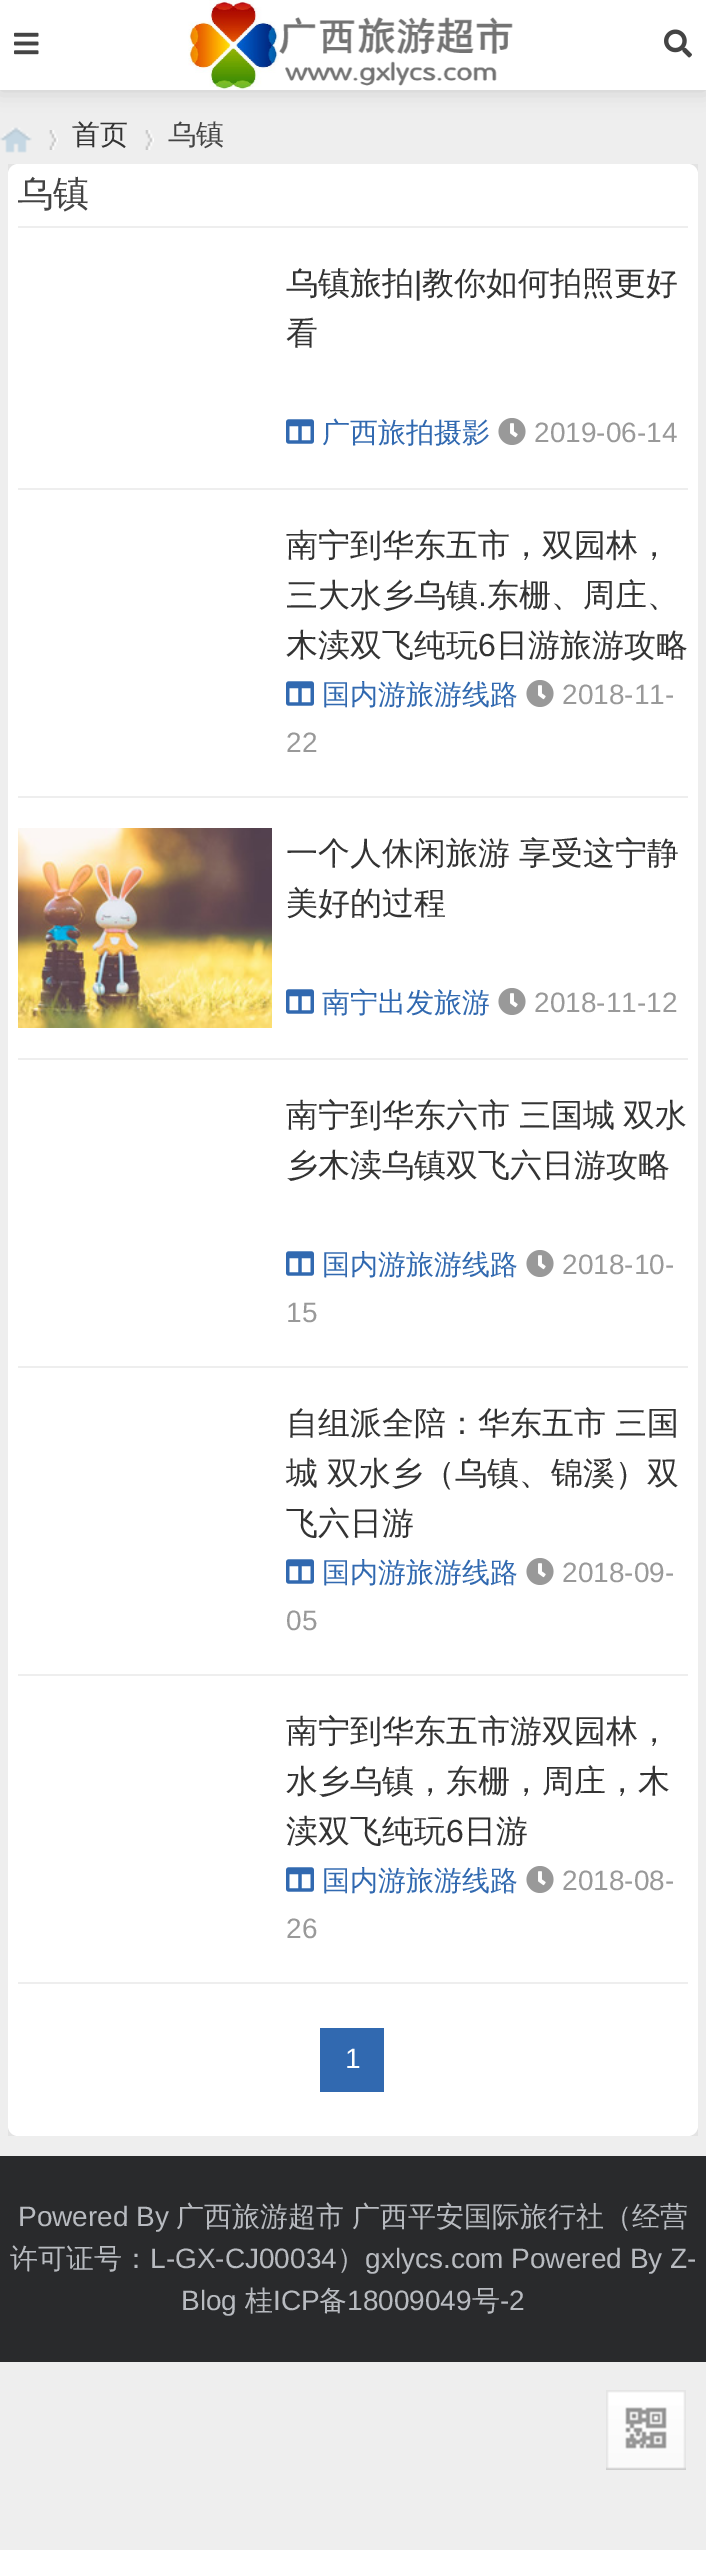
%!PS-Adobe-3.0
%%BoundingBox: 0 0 706 2550
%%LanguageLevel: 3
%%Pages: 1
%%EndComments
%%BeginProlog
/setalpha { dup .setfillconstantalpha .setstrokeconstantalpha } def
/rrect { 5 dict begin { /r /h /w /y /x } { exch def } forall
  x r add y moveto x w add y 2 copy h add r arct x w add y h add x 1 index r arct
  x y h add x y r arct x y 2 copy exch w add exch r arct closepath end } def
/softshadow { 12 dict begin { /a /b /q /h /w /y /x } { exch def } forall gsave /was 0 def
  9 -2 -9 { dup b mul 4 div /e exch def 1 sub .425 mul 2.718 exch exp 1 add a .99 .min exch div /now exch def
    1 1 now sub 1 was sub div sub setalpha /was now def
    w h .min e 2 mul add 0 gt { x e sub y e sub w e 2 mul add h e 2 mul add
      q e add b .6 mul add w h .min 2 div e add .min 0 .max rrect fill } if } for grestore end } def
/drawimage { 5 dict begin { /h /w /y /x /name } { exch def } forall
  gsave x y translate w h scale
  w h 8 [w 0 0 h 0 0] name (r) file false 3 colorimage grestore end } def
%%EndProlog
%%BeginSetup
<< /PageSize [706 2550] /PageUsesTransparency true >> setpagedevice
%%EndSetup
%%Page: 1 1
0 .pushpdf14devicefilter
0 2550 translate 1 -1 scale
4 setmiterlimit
0.933 setgray
0 0 706 2550 rectfill
0 setgray
0 0 706 90 0 10 0.15 softshadow
1 setgray
0 0 706 90 rectfill
(images/1.raw) 14 32 25 23 drawimage
(images/2.raw) 188 0 325 90 drawimage
(images/3.raw) 664 29 28 29 drawimage
(images/4.raw) 0 127 32 26 drawimage
(images/5.raw) 49 130 9 20 drawimage
(images/5.raw) 145 130 9 20 drawimage
0.161 0.165 0.173 setrgbcolor
0 2156 706 206 rectfill
gsave
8 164 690 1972 rectclip
0 setgray
8 164 690 1972 10 10 0.15 softshadow
grestore
1 setgray
8 164 690 1972 10 rrect fill
0.933 setgray
18 226 670 2 rectfill
18 488 670 2 rectfill
(images/6.raw) 286 419 28 25 drawimage
(images/7.raw) 498 418 28 27 drawimage
18 796 670 2 rectfill
(images/6.raw) 286 681 28 25 drawimage
(images/7.raw) 526 680 28 27 drawimage
18 1058 670 2 rectfill
(images/8.raw) 18 828 254 200 drawimage
(images/6.raw) 286 989 28 25 drawimage
(images/7.raw) 498 988 28 27 drawimage
18 1366 670 2 rectfill
(images/6.raw) 286 1251 28 25 drawimage
(images/7.raw) 526 1250 28 27 drawimage
18 1674 670 2 rectfill
(images/6.raw) 286 1559 28 25 drawimage
(images/7.raw) 526 1558 28 27 drawimage
18 1982 670 2 rectfill
(images/6.raw) 286 1867 28 25 drawimage
(images/7.raw) 526 1866 28 27 drawimage
0.192 0.412 0.69 setrgbcolor
320 2028 64 64 rectfill
(images/9.raw) 606 2390 80 80 drawimage
/WenQuanYiZenHei-Medium [28 0 0 -28 0 0] selectfont
0.2 setgray
72 144 moveto (首页) show
0.267 setgray
168 144 moveto (乌镇) show
gsave
18 164 670 62 rectclip
/WenQuanYiZenHei-Medium [36 0 0 -36 0 0] selectfont
17 206 moveto (乌镇) show
grestore
/WenQuanYiZenHei-Medium [32 0 0 -32 0 0] selectfont
0.2 setgray
286 294 moveto (乌镇旅拍) show
/LiberationSans-Regular [32 0 0 -32 0 0] selectfont
414 294 moveto (|) show
/WenQuanYiZenHei-Medium [32 0 0 -32 0 0] selectfont
422 294 moveto (教你如何拍照更好) show
286 344 moveto (看) show
/WenQuanYiZenHei-Medium [28 0 0 -28 0 0] selectfont
0.192 0.412 0.69 setrgbcolor
322 442 moveto (广西旅拍摄影) show
/LiberationSans-Regular [28 0 0 -28 0 0] selectfont
0.6 setgray
534 442 moveto (2019-06-14) show
/WenQuanYiZenHei-Medium [32 0 0 -32 0 0] selectfont
0.2 setgray
286 556 moveto (南宁到华东五市，双园林，) show
286 606 moveto (三大水乡乌镇) show
/LiberationSans-Regular [32 0 0 -32 0 0] selectfont
478 606 moveto (.) show
/WenQuanYiZenHei-Medium [32 0 0 -32 0 0] selectfont
487 606 moveto (东栅、周庄、) show
286 656 moveto (木渎双飞纯玩) show
/LiberationSans-Regular [32 0 0 -32 0 0] selectfont
478 656 moveto (6) show
/WenQuanYiZenHei-Medium [32 0 0 -32 0 0] selectfont
496 656 moveto (日游旅游攻略) show
/WenQuanYiZenHei-Medium [28 0 0 -28 0 0] selectfont
0.192 0.412 0.69 setrgbcolor
322 704 moveto (国内游旅游线路) show
/LiberationSans-Regular [28 0 0 -28 0 0] selectfont
0.6 setgray
562 704 moveto (2018-11-) show
286 752 moveto (22) show
/WenQuanYiZenHei-Medium [32 0 0 -32 0 0] selectfont
0.2 setgray
286 864 moveto -1 0 32 (一个人休闲旅游 享受这宁静) widthshow
286 914 moveto (美好的过程) show
/WenQuanYiZenHei-Medium [28 0 0 -28 0 0] selectfont
0.192 0.412 0.69 setrgbcolor
322 1012 moveto (南宁出发旅游) show
/LiberationSans-Regular [28 0 0 -28 0 0] selectfont
0.6 setgray
534 1012 moveto (2018-11-12) show
/WenQuanYiZenHei-Medium [32 0 0 -32 0 0] selectfont
0.2 setgray
286 1126 moveto -1 0 32 (南宁到华东六市 三国城 双水) widthshow
286 1176 moveto (乡木渎乌镇双飞六日游攻略) show
/WenQuanYiZenHei-Medium [28 0 0 -28 0 0] selectfont
0.192 0.412 0.69 setrgbcolor
322 1274 moveto (国内游旅游线路) show
/LiberationSans-Regular [28 0 0 -28 0 0] selectfont
0.6 setgray
562 1274 moveto (2018-10-) show
286 1322 moveto (15) show
/WenQuanYiZenHei-Medium [32 0 0 -32 0 0] selectfont
0.2 setgray
286 1434 moveto -1 0 32 (自组派全陪：华东五市 三国) widthshow
286 1484 moveto -1 0 32 (城 双水乡（乌镇、锦溪）双) widthshow
286 1534 moveto (飞六日游) show
/WenQuanYiZenHei-Medium [28 0 0 -28 0 0] selectfont
0.192 0.412 0.69 setrgbcolor
322 1582 moveto (国内游旅游线路) show
/LiberationSans-Regular [28 0 0 -28 0 0] selectfont
0.6 setgray
562 1582 moveto (2018-09-) show
286 1630 moveto (05) show
/WenQuanYiZenHei-Medium [32 0 0 -32 0 0] selectfont
0.2 setgray
286 1742 moveto (南宁到华东五市游双园林，) show
286 1792 moveto (水乡乌镇，东栅，周庄，木) show
286 1842 moveto (渎双飞纯玩) show
/LiberationSans-Regular [32 0 0 -32 0 0] selectfont
446 1842 moveto (6) show
/WenQuanYiZenHei-Medium [32 0 0 -32 0 0] selectfont
464 1842 moveto (日游) show
/WenQuanYiZenHei-Medium [28 0 0 -28 0 0] selectfont
0.192 0.412 0.69 setrgbcolor
322 1890 moveto (国内游旅游线路) show
/LiberationSans-Regular [28 0 0 -28 0 0] selectfont
0.6 setgray
562 1890 moveto (2018-08-) show
286 1938 moveto (26) show
1 setgray
345 2068 moveto (1) show
0.722 0.733 0.753 setrgbcolor
18 2226 moveto (Powered By) show
/WenQuanYiZenHei-Medium [28 0 0 -28 0 0] selectfont
176 2226 moveto (广西旅游超市) show
352 2226 moveto (广西平安国际旅行社（经营) show
10 2268 moveto (许可证号：) show
/LiberationSans-Regular [28 0 0 -28 0 0] selectfont
150 2268 moveto (L-GX-CJ00034) show
/WenQuanYiZenHei-Medium [28 0 0 -28 0 0] selectfont
337 2268 moveto (）) show
/LiberationSans-Regular [28 0 0 -28 0 0] selectfont
365 2268 moveto (gxlycs.com Powered By Z-) show
181 2310 moveto (Blog) show
/WenQuanYiZenHei-Medium [28 0 0 -28 0 0] selectfont
245 2310 moveto (桂) show
/LiberationSans-Regular [28 0 0 -28 0 0] selectfont
273 2310 moveto (ICP) show
/WenQuanYiZenHei-Medium [28 0 0 -28 0 0] selectfont
319 2310 moveto (备) show
/LiberationSans-Regular [28 0 0 -28 0 0] selectfont
347 2310 moveto (18009049) show
/WenQuanYiZenHei-Medium [28 0 0 -28 0 0] selectfont
472 2310 moveto (号) show
/LiberationSans-Regular [28 0 0 -28 0 0] selectfont
500 2310 moveto (-2) show
.poppdf14devicefilter showpage
%%EOF
